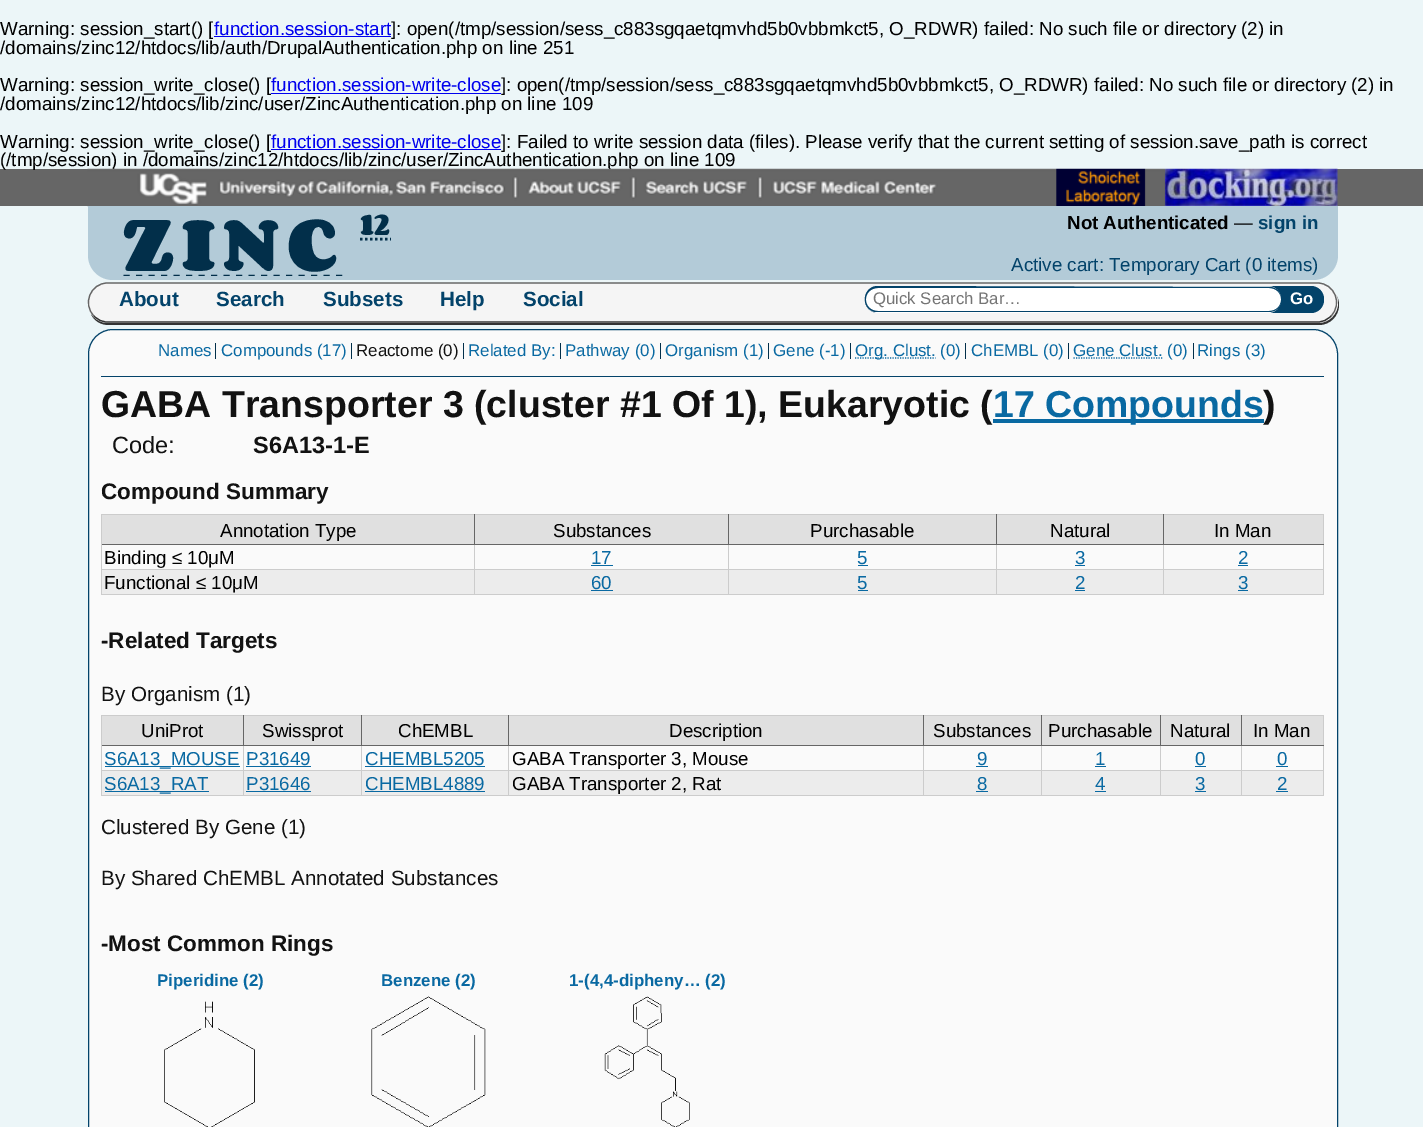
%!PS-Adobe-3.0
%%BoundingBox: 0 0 1423 1127
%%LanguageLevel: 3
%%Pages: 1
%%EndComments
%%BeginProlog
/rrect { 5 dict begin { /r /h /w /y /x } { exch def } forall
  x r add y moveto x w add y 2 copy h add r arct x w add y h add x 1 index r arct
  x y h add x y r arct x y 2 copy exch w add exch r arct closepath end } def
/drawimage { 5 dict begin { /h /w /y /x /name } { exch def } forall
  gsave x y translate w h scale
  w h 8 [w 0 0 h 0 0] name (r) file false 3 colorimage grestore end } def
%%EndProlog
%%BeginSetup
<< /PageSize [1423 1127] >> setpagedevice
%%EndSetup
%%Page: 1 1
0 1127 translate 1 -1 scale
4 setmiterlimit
0.925 0.965 0.973 setrgbcolor
0 0 1423 1127 rectfill
0 0 0.933 setrgbcolor
214 36 177 1 rectfill
271 93 230 1 rectfill
271 149 230 1 rectfill
0.4 setgray
0 169 1423 37 rectfill
0.2 setgray
newpath 91 314 moveto 94 321 101 325 109 325 curveto 1319 325 lineto 1330 325 1339 316 1339 305 curveto 1339 301 1338 297 1335 294 curveto 1337 296 1338 299 1338 302 curveto 1338 314 1329 322 1318 322 curveto 108 322 lineto 101 322 95 319 91 314 curveto closepath fill
0.961 setgray
88 283 1250 40 20 rrect fill
0.2 setgray
1.2 setlinewidth
newpath 1331 316 moveto 1327.5 320 1322.5 322 1317.5 322 curveto 107.5 322 lineto 102.5 322 97.5 320 94 316 curveto stroke
0.4 setgray
newpath 94 316 moveto 82 304 90.5 283 107.5 283 curveto 1317.5 283 lineto 1334.5 283 1343 304 1331 316 curveto stroke
0.012 0.263 0.416 setrgbcolor
865 286 459 27 13 rrect fill
1 setgray
865 286 416 27 13 rrect fill
0.012 0.263 0.416 setrgbcolor
newpath 878 286 moveto 1271 287 lineto 1279 288 1282 295 1281 303 curveto 1280 308 1275 312 1269 312 curveto 875 312 lineto 860 309 862 286 878 286 curveto closepath 878 288 moveto 1269 288 lineto 1276 288 1281 293 1281 299 curveto 1281 300 lineto 1281 306 1276 311 1269 311 curveto 878 311 lineto 871 311 866 306 866 300 curveto 866 299 lineto 866 293 871 288 878 288 curveto closepath eofill
0.98 setgray
newpath 113 329.5 moveto 1313 329.5 lineto 1326.5 329.5 1337.5 340.5 1337.5 354 curveto 1337.5 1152.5 lineto 88.5 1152.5 lineto 88.5 354 lineto 88.5 340.5 99.5 329.5 113 329.5 curveto closepath gsave fill grestore
0.012 0.263 0.416 setrgbcolor
1 setlinewidth
stroke
101 376 1223 1 rectfill
0.008 0.184 0.29 setrgbcolor
215 343 1 16 rectfill
351 343 1 16 rectfill
463 343 1 16 rectfill
560 343 1 16 rectfill
660 343 1 16 rectfill
768 343 1 16 rectfill
850 343 1 16 rectfill
0.035 0.412 0.635 setrgbcolor
1.2 setlinewidth
[1.25 1.25] 0 setdash
newpath 855 358 moveto 935.5 358 lineto stroke
0.008 0.184 0.29 setrgbcolor
965 343 1 16 rectfill
1068 343 1 16 rectfill
0.035 0.412 0.635 setrgbcolor
newpath 1073.5 358 moveto 1162.5 358 lineto stroke
0.008 0.184 0.29 setrgbcolor
1193 343 1 16 rectfill
0.035 0.412 0.635 setrgbcolor
993 419 271 4 rectfill
0.8 setgray
101 514 1223 1 rectfill
1323 514 1 81 rectfill
101 594 1223 1 rectfill
101 545 1 50 rectfill
0.878 setgray
102 515 372 29 rectfill
0.8 setgray
1163 569 161 1 rectfill
1163 569 1 26 rectfill
996 569 168 1 rectfill
1163 544 1 26 rectfill
0.4 setgray
1163 544 161 1 rectfill
1163 514 1 31 rectfill
0.8 setgray
996 569 1 26 rectfill
728 569 270 1 rectfill
996 544 1 26 rectfill
0.4 setgray
996 544 168 1 rectfill
996 514 1 31 rectfill
0.8 setgray
728 569 1 26 rectfill
474 569 255 1 rectfill
728 544 1 26 rectfill
0.4 setgray
728 544 270 1 rectfill
728 514 1 31 rectfill
0.8 setgray
474 569 1 26 rectfill
101 569 374 1 rectfill
474 544 1 26 rectfill
0.4 setgray
474 544 255 1 rectfill
474 514 1 31 rectfill
101 544 374 1 rectfill
0.8 setgray
101 514 1 31 rectfill
0.878 setgray
475 515 253 29 rectfill
729 515 267 29 rectfill
997 515 166 29 rectfill
1164 515 159 29 rectfill
0.035 0.412 0.635 setrgbcolor
591 565 22 1 rectfill
858 565 10 1 rectfill
1075 565 10 1 rectfill
1238 565 10 1 rectfill
0.925 setgray
102 570 372 24 rectfill
475 570 253 24 rectfill
0.035 0.412 0.635 setrgbcolor
591 590 22 1 rectfill
0.925 setgray
729 570 267 24 rectfill
0.035 0.412 0.635 setrgbcolor
858 590 10 1 rectfill
0.925 setgray
997 570 166 24 rectfill
0.035 0.412 0.635 setrgbcolor
1075 590 10 1 rectfill
0.925 setgray
1164 570 159 24 rectfill
0.035 0.412 0.635 setrgbcolor
1238 590 10 1 rectfill
0.8 setgray
101 715 1223 1 rectfill
1323 715 1 81 rectfill
101 795 1223 1 rectfill
101 746 1 50 rectfill
0.878 setgray
102 716 141 29 rectfill
0.8 setgray
1241 770 83 1 rectfill
1241 770 1 26 rectfill
1160 770 83 1 rectfill
1241 745 1 26 rectfill
0.4 setgray
1241 745 83 1 rectfill
1241 715 1 31 rectfill
0.8 setgray
1160 770 1 26 rectfill
1041 770 120 1 rectfill
1160 745 1 26 rectfill
0.4 setgray
1160 745 83 1 rectfill
1160 715 1 31 rectfill
0.8 setgray
1041 770 1 26 rectfill
923 770 120 1 rectfill
1041 745 1 26 rectfill
0.4 setgray
1041 745 120 1 rectfill
1041 715 1 31 rectfill
0.8 setgray
923 770 1 26 rectfill
508 770 416 1 rectfill
923 745 1 26 rectfill
0.4 setgray
923 745 120 1 rectfill
923 715 1 31 rectfill
0.8 setgray
508 770 1 26 rectfill
361 770 148 1 rectfill
508 745 1 26 rectfill
0.4 setgray
508 745 416 1 rectfill
508 715 1 31 rectfill
0.8 setgray
361 770 1 26 rectfill
243 770 120 1 rectfill
361 745 1 26 rectfill
0.4 setgray
361 745 148 1 rectfill
361 715 1 31 rectfill
0.8 setgray
243 770 1 26 rectfill
101 770 143 1 rectfill
243 745 1 26 rectfill
0.4 setgray
243 745 120 1 rectfill
243 715 1 31 rectfill
101 745 143 1 rectfill
0.8 setgray
101 715 1 31 rectfill
0.878 setgray
244 716 117 29 rectfill
362 716 146 29 rectfill
509 716 414 29 rectfill
924 716 117 29 rectfill
1042 716 118 29 rectfill
1161 716 80 29 rectfill
1242 716 81 29 rectfill
0.035 0.412 0.635 setrgbcolor
105 766 135 1 rectfill
246 766 65 1 rectfill
365 766 120 1 rectfill
976 766 12 1 rectfill
1095 766 11 1 rectfill
1195 766 11 1 rectfill
1276 766 12 1 rectfill
0.925 setgray
102 771 141 24 rectfill
0.035 0.412 0.635 setrgbcolor
105 791 104 1 rectfill
0.925 setgray
244 771 117 24 rectfill
0.035 0.412 0.635 setrgbcolor
246 791 65 1 rectfill
0.925 setgray
362 771 146 24 rectfill
0.035 0.412 0.635 setrgbcolor
365 791 120 1 rectfill
0.925 setgray
509 771 414 24 rectfill
924 771 117 24 rectfill
0.035 0.412 0.635 setrgbcolor
976 791 12 1 rectfill
0.925 setgray
1042 771 118 24 rectfill
0.035 0.412 0.635 setrgbcolor
1095 791 11 1 rectfill
0.925 setgray
1161 771 80 24 rectfill
0.035 0.412 0.635 setrgbcolor
1195 791 11 1 rectfill
0.925 setgray
1242 771 81 24 rectfill
0.035 0.412 0.635 setrgbcolor
1276 791 12 1 rectfill
(images/2.raw) 164 1001 91 126 drawimage
(images/3.raw) 371 996 115 131 drawimage
(images/4.raw) 604 996 86 131 drawimage
/LiberationSans-Regular [18.75 0 0 -18.75 0 0] selectfont
0 setgray
0 35 moveto (Warning: session_start\(\) [) show
0 0 0.933 setrgbcolor
214 35 moveto (function.session-start) show
0 setgray
391 35 moveto (]: open\(/tmp/session/sess_c883sgqaetqmvhd5b0vbbmkct5, O_RDWR\) failed: No such file or directory \(2\) in) show
0 54 moveto (/domains/zinc12/htdocs/lib/auth/DrupalAuthentication.php on line 251) show
0 91 moveto (Warning: session_write_close\(\) [) show
0 0 0.933 setrgbcolor
271 91 moveto (function.session-write-close) show
0 setgray
501 91 moveto (]: open\(/tmp/session/sess_c883sgqaetqmvhd5b0vbbmkct5, O_RDWR\) failed: No such file or directory \(2\) in) show
0 110 moveto (/domains/zinc12/htdocs/lib/zinc/user/ZincAuthentication.php on line 109) show
0 148 moveto (Warning: session_write_close\(\) [) show
0 0 0.933 setrgbcolor
271 148 moveto (function.session-write-close) show
0 setgray
501 148 moveto (]: Failed to write session data \(files\). Please verify that the current setting of session.save_path is correct) show
0 166 moveto (\(/tmp/session\) in /domains/zinc12/htdocs/lib/zinc/user/ZincAuthentication.php on line 109) show
(images/1.raw) 87 168 1251 39 drawimage
0.702 0.796 0.847 setrgbcolor
newpath 88 206 moveto 1338 206 lineto 1338 255 lineto 1338 269 1327 280 1313 280 curveto 113 280 lineto 99 280 88 269 88 255 curveto closepath fill
/Corben-Bold [65.5 0 0 -65.5 0 0] selectfont
0.008 0.184 0.29 setrgbcolor
123 271 moveto 6.5 0 (ZINC) ashow
gsave
91 210 1243 66 rectclip
6.2 setlinewidth
[6.25 6.25] 0 setdash
newpath 123.5 278 moveto 344 278 lineto stroke
grestore
/Corben-Bold [26 0 0 -26 0 0] selectfont
360 235 moveto (12) show
2.5 setlinewidth
[2.5 2.5] 0 setdash
newpath 360 239 moveto 391 239 lineto stroke
/LiberationSans-Bold [18.75 0 0 -18.75 0 0] selectfont
0 setgray
1067 229 moveto (Not Authenticated) show
/LiberationSans-Regular [18.75 0 0 -18.75 0 0] selectfont
1234 229 moveto (—) show
/LiberationSans-Bold [18.75 0 0 -18.75 0 0] selectfont
0.012 0.263 0.416 setrgbcolor
1258 229 moveto (sign in) show
/LiberationSans-Regular [18.75 0 0 -18.75 0 0] selectfont
1011 271 moveto (Active cart: Temporary Cart \(0 items\)) show
/LiberationSans-Bold [20.6 0 0 -20.6 0 0] selectfont
119 306 moveto (About) show
216 306 moveto (Search) show
323 306 moveto (Subsets) show
440 306 moveto (Help) show
523 306 moveto (Social) show
/LiberationSans-Regular [16.75 0 0 -16.75 0 0] selectfont
0.459 setgray
873 304 moveto (Quick Search Bar…) show
/LiberationSans-Bold [16.75 0 0 -16.75 0 0] selectfont
1 setgray
1290 304 moveto (Go) show
/LiberationSans-Regular [16.9 0 0 -16.9 0 0] selectfont
0.035 0.412 0.635 setrgbcolor
158 356 moveto (Names) show
221 356 moveto (Compounds \(17\)) show
0.071 setgray
356 356 moveto (Reactome \(0\)) show
0.035 0.412 0.635 setrgbcolor
468 356 moveto (Related By:) show
565 356 moveto (Pathway \(0\)) show
665 356 moveto (Organism \(1\)) show
773 356 moveto (Gene \(-1\)) show
855 356 moveto (Org. Clust. \(0\)) show
971 356 moveto (ChEMBL \(0\)) show
1073 356 moveto (Gene Clust. \(0\)) show
1197 356 moveto (Rings \(3\)) show
/LiberationSans-Bold [37.5 0 0 -37.5 0 0] selectfont
0.071 setgray
101 417 moveto (GABA Transporter 3 \(cluster #1 Of 1\), Eukaryotic \() show
0.035 0.412 0.635 setrgbcolor
993 417 moveto (17 Compounds) show
0.071 setgray
1263 417 moveto (\)) show
/LiberationSans-Regular [23.5 0 0 -23.5 0 0] selectfont
112 453 moveto (Code:) show
/LiberationSans-Bold [23.5 0 0 -23.5 0 0] selectfont
253 453 moveto (S6A13-1-E) show
/LiberationSans-Bold [22.5 0 0 -22.5 0 0] selectfont
101 499 moveto (Compound Summary) show
/LiberationSans-Regular [18.75 0 0 -18.75 0 0] selectfont
0 setgray
220 537 moveto (Annotation Type) show
553 537 moveto (Substances) show
810 537 moveto (Purchasable) show
1050 537 moveto (Natural) show
1214 537 moveto (In Man) show
104 564 moveto (Binding ≤ 10μM) show
0.035 0.412 0.635 setrgbcolor
591 564 moveto (17) show
857 564 moveto (5) show
1075 564 moveto (3) show
1238 564 moveto (2) show
0 setgray
104 589 moveto (Functional ≤ 10μM) show
0.035 0.412 0.635 setrgbcolor
591 589 moveto (60) show
857 589 moveto (5) show
1075 589 moveto (2) show
1238 589 moveto (3) show
/LiberationSans-Bold [22.5 0 0 -22.5 0 0] selectfont
0.071 setgray
101 648 moveto (-Related Targets) show
/LiberationSans-Regular [20.6 0 0 -20.6 0 0] selectfont
101 701 moveto (By Organism \(1\)) show
/LiberationSans-Regular [18.75 0 0 -18.75 0 0] selectfont
0 setgray
141 737 moveto (UniProt) show
262 737 moveto (Swissprot) show
398 737 moveto (ChEMBL) show
669 737 moveto (Description) show
933 737 moveto (Substances) show
1048 737 moveto (Purchasable) show
1170 737 moveto (Natural) show
1253 737 moveto (In Man) show
0.035 0.412 0.635 setrgbcolor
104 765 moveto (S6A13_MOUSE) show
246 765 moveto (P31649) show
365 765 moveto (CHEMBL5205) show
0 setgray
512 765 moveto (GABA Transporter 3, Mouse) show
0.035 0.412 0.635 setrgbcolor
977 765 moveto (9) show
1095 765 moveto (1) show
1195 765 moveto (0) show
1277 765 moveto (0) show
104 790 moveto (S6A13_RAT) show
246 790 moveto (P31646) show
365 790 moveto (CHEMBL4889) show
0 setgray
512 790 moveto (GABA Transporter 2, Rat) show
0.035 0.412 0.635 setrgbcolor
977 790 moveto (8) show
1095 790 moveto (4) show
1195 790 moveto (3) show
1277 790 moveto (2) show
/LiberationSans-Regular [20.6 0 0 -20.6 0 0] selectfont
0.071 setgray
101 834 moveto (Clustered By Gene \(1\)) show
101 885 moveto (By Shared ChEMBL Annotated Substances) show
/LiberationSans-Bold [22.5 0 0 -22.5 0 0] selectfont
101 951 moveto (-Most Common Rings) show
/LiberationSans-Bold [16.9 0 0 -16.9 0 0] selectfont
0.035 0.412 0.635 setrgbcolor
157 986 moveto (Piperidine \(2\)) show
381 986 moveto (Benzene \(2\)) show
569 986 moveto (1-\(4,4-dipheny… \(2\)) show
showpage
%%EOF
